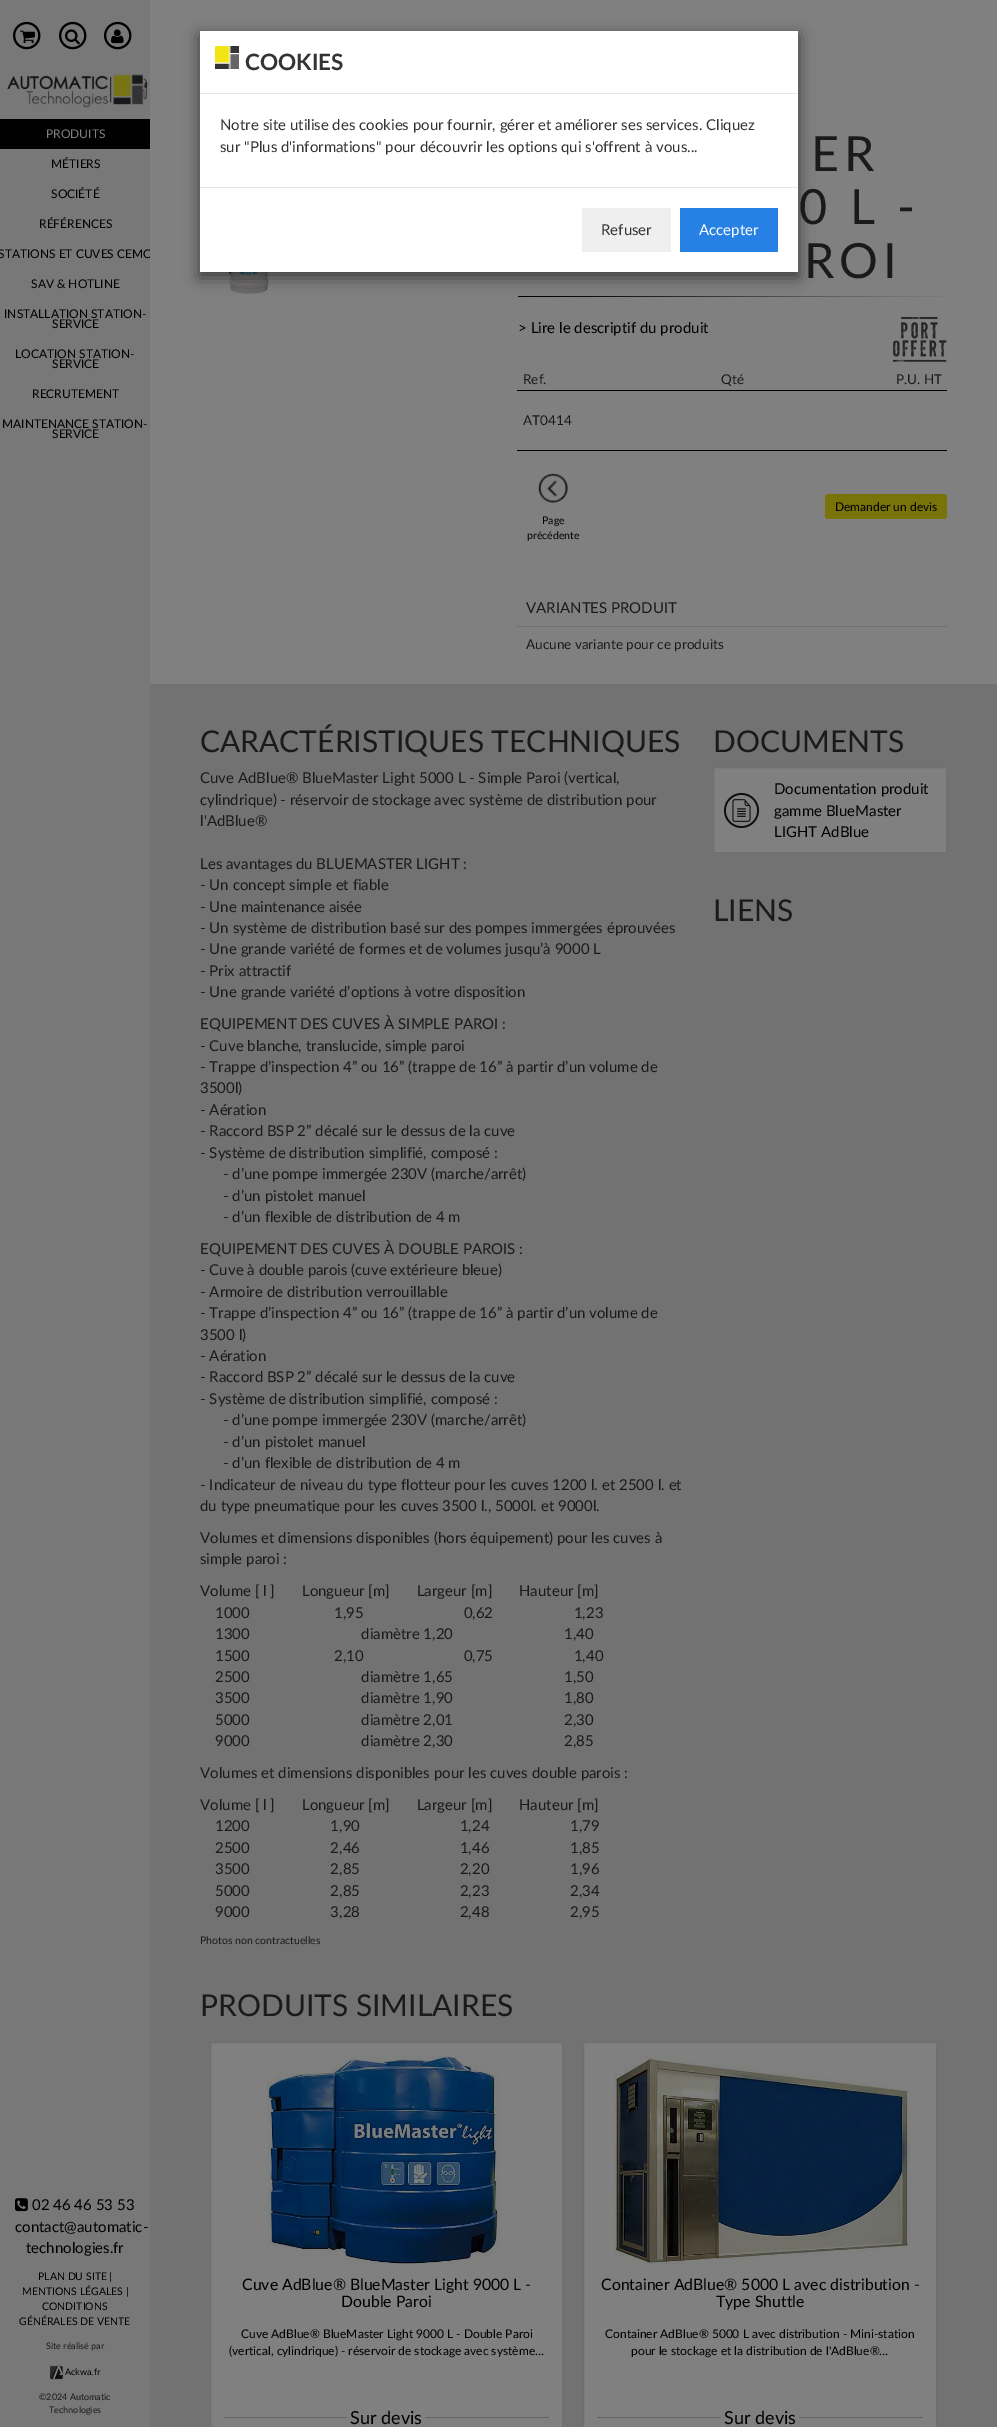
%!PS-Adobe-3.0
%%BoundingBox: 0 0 997 2427
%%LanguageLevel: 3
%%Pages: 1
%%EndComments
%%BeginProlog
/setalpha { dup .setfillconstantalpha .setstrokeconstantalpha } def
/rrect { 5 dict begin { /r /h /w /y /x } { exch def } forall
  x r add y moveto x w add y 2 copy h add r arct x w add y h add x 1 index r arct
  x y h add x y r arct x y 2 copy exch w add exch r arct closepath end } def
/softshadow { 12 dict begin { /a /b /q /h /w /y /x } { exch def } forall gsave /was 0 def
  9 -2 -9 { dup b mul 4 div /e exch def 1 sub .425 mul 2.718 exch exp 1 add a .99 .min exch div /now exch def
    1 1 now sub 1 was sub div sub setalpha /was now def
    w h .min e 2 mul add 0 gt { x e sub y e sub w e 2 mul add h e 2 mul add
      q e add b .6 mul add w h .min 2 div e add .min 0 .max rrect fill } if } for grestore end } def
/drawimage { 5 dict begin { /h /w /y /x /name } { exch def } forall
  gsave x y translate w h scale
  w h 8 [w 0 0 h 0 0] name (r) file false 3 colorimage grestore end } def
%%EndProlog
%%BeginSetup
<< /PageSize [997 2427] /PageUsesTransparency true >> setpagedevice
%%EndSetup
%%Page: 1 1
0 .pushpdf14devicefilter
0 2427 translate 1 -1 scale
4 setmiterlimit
0.502 setgray
0 0 997 2427 rectfill
(images/9.raw) 223 272 46 22 drawimage
(images/10.raw) 518 296 429 1 drawimage
0 setgray
199 35 600 243 0 7.5 0.5 softshadow
1 setgray
200 31 598 241 rectfill
0.898 setgray
200 93 598 1 rectfill
(images/1.raw) 215 46 24 23 drawimage
200 187 598 1 rectfill
0.937 setgray
582 208 89 44 rectfill
0.153 0.502 0.89 setrgbcolor
680 208 98 44 rectfill
0.471 setgray
0 0 150 2427 rectfill
(images/2.raw) 13 21 28 29 drawimage
(images/3.raw) 20 30 15 14 drawimage
(images/2.raw) 59 21 28 29 drawimage
(images/4.raw) 65 29 15 16 drawimage
(images/2.raw) 104 21 28 29 drawimage
(images/5.raw) 111 29 13 15 drawimage
(images/6.raw) 7 74 141 34 drawimage
0 setgray
0 119 150 30 rectfill
(images/7.raw) 15 2198 13 14 drawimage
(images/8.raw) 50 2365 13 15 drawimage
(images/11.raw) 893 317 54 45 drawimage
517 390 430 1 rectfill
517 450 430 1 rectfill
0.475 0.451 0.039 setrgbcolor
825 494 122 25 3 rrect fill
(images/12.raw) 538 473 30 30 drawimage
0.435 setgray
517 626 430 1 rectfill
0.447 setgray
150 684 847 1743 rectfill
0.502 setgray
714 768 232 84 rectfill
(images/13.raw) 724 793 35 35 drawimage
0.435 setgray
713.5 767.5 233 85 rectstroke
0.502 setgray
newpath 210.5 2042.5 moveto 562.5 2042.5 lineto 562.5 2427.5 lineto 210.5 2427.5 lineto closepath gsave fill grestore
0.435 setgray
stroke
(images/14.raw) 267 2056 235 209 drawimage
0.388 setgray
224 2417 325 1 rectfill
0.502 setgray
347 2417 78 1 rectfill
newpath 583.5 2042.5 moveto 936.5 2042.5 lineto 936.5 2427.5 lineto 583.5 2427.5 lineto closepath gsave fill grestore
0.435 setgray
stroke
(images/15.raw) 614 2056 297 209 drawimage
0.388 setgray
597 2417 326 1 rectfill
0.502 setgray
721 2417 78 1 rectfill
/Lato-Bold [22.5 0 0 -22.5 0 0] selectfont
0.2 setgray
245 70 moveto (COOKIES) show
/Lato-Regular [15 0 0 -15 0 0] selectfont
220 130 moveto (Notre site utilise des cookies pour fournir, gérer et améliorer ses services. Cliquez) show
220 152 moveto (sur "Plus d'informations" pour découvrir les options qui s'offrent à vous...) show
601 235 moveto (Refuser) show
1 setgray
699 235 moveto (Accepter) show
/Lato-Regular [12 0 0 -12 0 0] selectfont
0.502 setgray
46 138 moveto (PRODUITS) show
0 setgray
51 168 moveto (MÉTIERS) show
51 198 moveto (SOCIÉTÉ) show
39 228 moveto (RÉFÉRENCES) show
gsave
0 0 150 2427 rectclip
-2 258 moveto (STATIONS ET CUVES CEMO) show
grestore
31 288 moveto (SAV & HOTLINE) show
4 318 moveto (INSTALLATION STATION-) show
52 328 moveto (SERVICE) show
15 358 moveto (LOCATION STATION-) show
52 368 moveto (SERVICE) show
32 398 moveto (RECRUTEMENT) show
2 428 moveto (MAINTENANCE STATION-) show
52 438 moveto (SERVICE) show
/Lato-Regular [15 0 0 -15 0 0] selectfont
32 2210 moveto (02 46 46 53 53) show
15 2232 moveto (contact@automatic-) show
26 2253 moveto (technologies.fr) show
/Lato-Regular [10.5 0 0 -10.5 0 0] selectfont
38 2280 moveto (PLAN DU SITE |) show
22 2295 moveto (MENTIONS LÉGALES |) show
42 2310 moveto (CONDITIONS) show
19 2325 moveto (GÉNÉRALES DE VENTE) show
/Lato-Regular [9 0 0 -9 0 0] selectfont
0.102 setgray
46 2349 moveto (Site réalisé par) show
0 setgray
65 2375 moveto (Ackwa.fr) show
0.102 setgray
39 2400 moveto (©2024 Automatic) show
49 2413 moveto (Technologies) show
/Lato-Regular [48.5 0 0 -48.5 0 0] selectfont
811 171 moveto 5 0 (ER) ashow
799 224 moveto 5 0 (0 L -) ashow
804 278 moveto 5 0 (ROI) ashow
/Lato-Regular [15 0 0 -15 0 0] selectfont
0 setgray
518 333 moveto (> Lire le descriptif du produit) show
/Lato-Regular [13.5 0 0 -13.5 0 0] selectfont
0.102 setgray
523 384 moveto (Ref.) show
721 384 moveto (Qté) show
896 384 moveto (P.U. HT) show
523 425 moveto (AT0414) show
/Lato-Regular [12 0 0 -12 0 0] selectfont
0 setgray
835 511 moveto (Demander un devis) show
/Lato-Regular [10.5 0 0 -10.5 0 0] selectfont
542 524 moveto (Page) show
527 539 moveto (précédente) show
/Lato-Regular [15 0 0 -15 0 0] selectfont
0.102 setgray
526 613 moveto (VARIANTES PRODUIT) show
/Lato-Regular [13.5 0 0 -13.5 0 0] selectfont
526 649 moveto (Aucune variante pour ce produits) show
/Lato-Regular [30 0 0 -30 0 0] selectfont
200 752 moveto (CARACTÉRISTIQUES TECHNIQUES) show
/Lato-Regular [15 0 0 -15 0 0] selectfont
200 783 moveto (Cuve AdBlue® BlueMaster Light 5000 L - Simple Paroi \(vertical,) show
200 805 moveto (cylindrique\) - réservoir de stockage avec système de distribution pour) show
200 826 moveto (l'AdBlue®) show
200 869 moveto (Les avantages du BLUEMASTER LIGHT :) show
200 890 moveto (- Un concept simple et fiable) show
200 912 moveto (- Une maintenance aisée) show
200 933 moveto (- Un système de distribution basé sur des pompes immergées éprouvées) show
200 954 moveto (- Une grande variété de formes et de volumes jusqu’à 9000 L) show
200 976 moveto (- Prix attractif) show
200 997 moveto (- Une grande variété d’options à votre disposition) show
200 1029 moveto (EQUIPEMENT DES CUVES À SIMPLE PAROI :) show
200 1051 moveto (- Cuve blanche, translucide, simple paroi) show
200 1072 moveto (- Trappe d’inspection 4” ou 16” \(trappe de 16” à partir d’un volume de) show
200 1093 moveto (3500l\)) show
200 1115 moveto (- Aération) show
200 1136 moveto (- Raccord BSP 2” décalé sur le dessus de la cuve) show
200 1158 moveto (- Système de distribution simplifié, composé :) show
223 1179 moveto (- d’une pompe immergée 230V \(marche/arrêt\)) show
223 1201 moveto (- d’un pistolet manuel) show
223 1222 moveto (- d’un flexible de distribution de 4 m) show
200 1254 moveto (EQUIPEMENT DES CUVES À DOUBLE PAROIS :) show
200 1275 moveto (- Cuve à double parois \(cuve extérieure bleue\)) show
200 1297 moveto (- Armoire de distribution verrouillable) show
200 1318 moveto (- Trappe d’inspection 4” ou 16” \(trappe de 16” à partir d’un volume de) show
200 1340 moveto (3500 l\)) show
200 1361 moveto (- Aération) show
200 1382 moveto (- Raccord BSP 2” décalé sur le dessus de la cuve) show
200 1404 moveto (- Système de distribution simplifié, composé :) show
223 1425 moveto (- d’une pompe immergée 230V \(marche/arrêt\)) show
223 1447 moveto (- d’un pistolet manuel) show
223 1468 moveto (- d’un flexible de distribution de 4 m) show
200 1490 moveto (- Indicateur de niveau du type flotteur pour les cuves 1200 l. et 2500 l. et) show
200 1511 moveto (du type pneumatique pour les cuves 3500 l., 5000l. et 9000l.) show
200 1543 moveto (Volumes et dimensions disponibles \(hors équipement\) pour les cuves à) show
200 1564 moveto (simple paroi :) show
200 1596 moveto (Volume [ l ]       Longueur [m]       Largeur [m]       Hauteur [m]) show
215 1618 moveto (1000                      1,95                          0,62                     1,23) show
215 1639 moveto (1300                             diamètre 1,20                             1,40) show
215 1661 moveto (1500                      2,10                          0,75                     1,40) show
215 1682 moveto (2500                             diamètre 1,65                             1,50) show
215 1703 moveto (3500                             diamètre 1,90                             1,80) show
215 1725 moveto (5000                             diamètre 2,01                             2,30) show
215 1746 moveto (9000                             diamètre 2,30                             2,85) show
200 1778 moveto (Volumes et dimensions disponibles pour les cuves double parois :) show
200 1810 moveto (Volume [ l ]       Longueur [m]       Largeur [m]       Hauteur [m]) show
215 1831 moveto (1200                     1,90                          1,24                     1,79) show
215 1853 moveto (2500                     2,46                          1,46                     1,85) show
215 1874 moveto (3500                     2,85                          2,20                     1,96) show
215 1896 moveto (5000                     2,85                          2,23                     2,34) show
215 1917 moveto (9000                     3,28                          2,48                     2,95) show
/Lato-Regular [10.5 0 0 -10.5 0 0] selectfont
200 1944 moveto (Photos non contractuelles) show
/Lato-Regular [30 0 0 -30 0 0] selectfont
713 752 moveto (DOCUMENTS) show
/Lato-Regular [15 0 0 -15 0 0] selectfont
0 setgray
774 794 moveto (Documentation produit) show
774 816 moveto (gamme BlueMaster) show
774 837 moveto (LIGHT AdBlue) show
/Lato-Regular [30 0 0 -30 0 0] selectfont
0.102 setgray
713 921 moveto (LIENS) show
200 2016 moveto (PRODUITS SIMILAIRES) show
/Lato-Regular [15.8 0 0 -15.8 0 0] selectfont
0 setgray
242 2290 moveto (Cuve AdBlue® BlueMaster Light 9000 L -) show
341 2307 moveto (Double Paroi) show
/Lato-Regular [12 0 0 -12 0 0] selectfont
241 2338 moveto (Cuve AdBlue® BlueMaster Light 9000 L - Double Paroi) show
229 2355 moveto (\(vertical, cylindrique\) - réservoir de stockage avec système…) show
/Lato-Regular [18 0 0 -18 0 0] selectfont
350 2424 moveto (Sur devis) show
/Lato-Regular [15.8 0 0 -15.8 0 0] selectfont
601 2290 moveto (Container AdBlue® 5000 L avec distribution -) show
716 2307 moveto (Type Shuttle) show
/Lato-Regular [12 0 0 -12 0 0] selectfont
605 2338 moveto (Container AdBlue® 5000 L avec distribution - Mini-station) show
631 2355 moveto (pour le stockage et la distribution de l'AdBlue®…) show
/Lato-Regular [18 0 0 -18 0 0] selectfont
724 2424 moveto (Sur devis) show
.poppdf14devicefilter showpage
%%EOF
